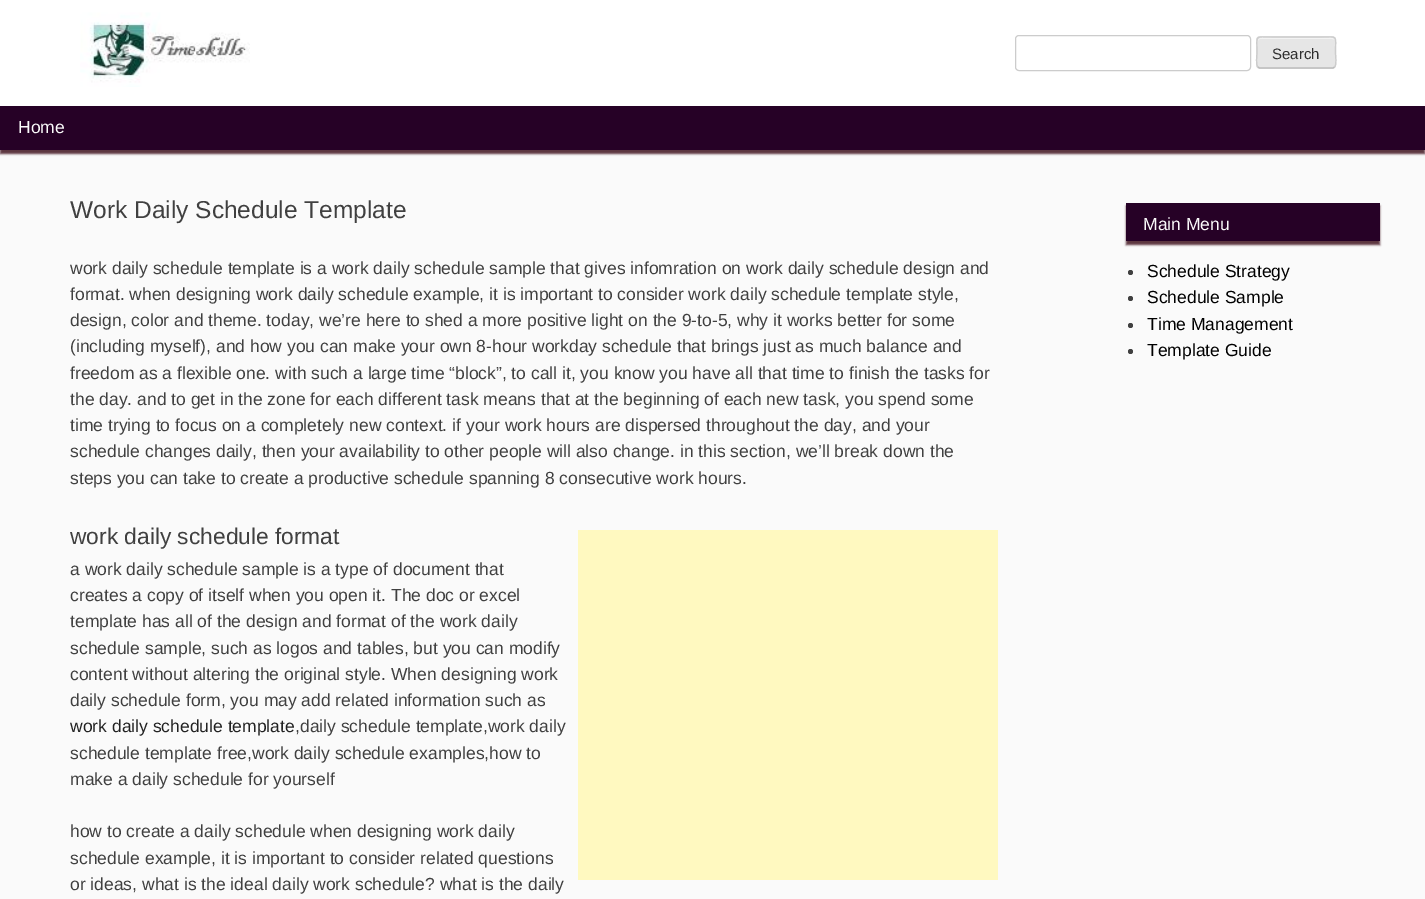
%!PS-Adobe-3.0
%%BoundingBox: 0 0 1425 899
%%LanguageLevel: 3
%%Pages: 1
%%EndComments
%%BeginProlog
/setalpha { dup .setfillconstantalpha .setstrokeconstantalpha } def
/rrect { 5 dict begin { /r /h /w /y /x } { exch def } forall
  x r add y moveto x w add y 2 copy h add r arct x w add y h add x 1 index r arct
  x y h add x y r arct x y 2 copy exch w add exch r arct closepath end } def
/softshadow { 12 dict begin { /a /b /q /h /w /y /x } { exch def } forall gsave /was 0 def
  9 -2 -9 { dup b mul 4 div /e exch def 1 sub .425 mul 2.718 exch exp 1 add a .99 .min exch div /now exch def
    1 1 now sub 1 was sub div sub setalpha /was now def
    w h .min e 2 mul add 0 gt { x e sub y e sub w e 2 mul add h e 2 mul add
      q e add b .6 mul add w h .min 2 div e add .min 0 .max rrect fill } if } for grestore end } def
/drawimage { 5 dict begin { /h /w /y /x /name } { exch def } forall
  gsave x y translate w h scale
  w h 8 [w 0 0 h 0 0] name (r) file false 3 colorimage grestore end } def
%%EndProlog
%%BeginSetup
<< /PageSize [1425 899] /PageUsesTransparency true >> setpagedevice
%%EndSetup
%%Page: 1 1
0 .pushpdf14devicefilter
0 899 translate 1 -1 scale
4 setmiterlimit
1 setgray
0 0 1425 899 rectfill
(images/1.raw) 80 12 170 75 drawimage
0.8 setgray
1015.5 35.5 235 35 3.5 rrect stroke
0.902 setgray
1256 36 80 33 4 rrect fill
0.953 setgray
newpath 1260 39 moveto 1332 39 lineto 1334 39 1335 40 1335 41 curveto 1335 35 1321 38 1320 38 curveto 1272 38 lineto 1272 38 1258 35 1258 41 curveto 1258 40 1259 39 1260 39 curveto closepath fill
0.733 setgray
1.2 setlinewidth
newpath 1334.5 67 moveto 1333 68 lineto 1259.5 68 lineto 1258 67 lineto stroke
0.8 setgray
newpath 1258 67 moveto 1255.5 65 1257 55.5 1257 52.5 curveto 1257 34.5 1254 37 1272 37 curveto 1320.5 37 lineto 1338.5 37 1335.5 34.5 1335.5 52.5 curveto 1335.5 55.5 1337 65 1334.5 67 curveto stroke
0.98 setgray
0 150 1425 749 rectfill
0.349 0.196 0.235 setrgbcolor
0 110 1425 44 0 1 1 softshadow
0.149 0.004 0.149 setrgbcolor
0 106 1425 44 rectfill
1 0.976 0.753 setrgbcolor
578 530 420 350 rectfill
0.349 0.196 0.235 setrgbcolor
1126 206 254 39 0 1 1 softshadow
0.149 0.004 0.149 setrgbcolor
1126 203 254 38 rectfill
0.251 setgray
newpath 1130.5 272.5 2.5 0 360 arc closepath fill
newpath 1130.5 298.5 2.5 0 360 arc closepath fill
newpath 1130.5 325.5 2.5 0 360 arc closepath fill
newpath 1130.5 351.5 2.5 0 360 arc closepath fill
/LiberationSans-Regular [15 0 0 -15 0 0] selectfont
0.18 setgray
1272 59 moveto (Search) show
/LiberationSans-Regular [17.5 0 0 -17.5 0 0] selectfont
0.98 setgray
18 133 moveto (Home) show
/LiberationSans-Regular [24.5 0 0 -24.5 0 0] selectfont
0.251 setgray
70 218 moveto (Work Daily Schedule Template) show
/LiberationSans-Regular [17.5 0 0 -17.5 0 0] selectfont
70 274 moveto (work daily schedule template is a work daily schedule sample that gives infomration on work daily schedule design and) show
70 300 moveto (format. when designing work daily schedule example, it is important to consider work daily schedule template style,) show
70 326 moveto (design, color and theme. today, we’re here to shed a more positive light on the 9-to-5, why it works better for some) show
70 352 moveto (\(including myself\), and how you can make your own 8-hour workday schedule that brings just as much balance and) show
70 379 moveto (freedom as a flexible one. with such a large time “block”, to call it, you know you have all that time to finish the tasks for) show
70 405 moveto (the day. and to get in the zone for each different task means that at the beginning of each new task, you spend some) show
70 431 moveto (time trying to focus on a completely new context. if your work hours are dispersed throughout the day, and your) show
70 457 moveto (schedule changes daily, then your availability to other people will also change. in this section, we’ll break down the) show
70 484 moveto (steps you can take to create a productive schedule spanning 8 consecutive work hours.) show
/LiberationSans-Regular [22.75 0 0 -22.75 0 0] selectfont
70 544 moveto (work daily schedule format) show
/LiberationSans-Regular [17.5 0 0 -17.5 0 0] selectfont
70 575 moveto (a work daily schedule sample is a type of document that) show
70 601 moveto (creates a copy of itself when you open it. The doc or excel) show
70 627 moveto (template has all of the design and format of the work daily) show
70 654 moveto (schedule sample, such as logos and tables, but you can modify) show
70 680 moveto (content without altering the original style. When designing work) show
70 706 moveto (daily schedule form, you may add related information such as) show
0.133 setgray
70 732 moveto (work daily schedule template) show
0.251 setgray
295 732 moveto (,daily schedule template,work daily) show
70 759 moveto (schedule template free,work daily schedule examples,how to) show
70 785 moveto (make a daily schedule for yourself) show
70 837 moveto (how to create a daily schedule when designing work daily) show
70 864 moveto (schedule example, it is important to consider related questions) show
70 890 moveto (or ideas, what is the ideal daily work schedule? what is the daily) show
0.98 setgray
1143 230 moveto (Main Menu) show
0 setgray
1147 277 moveto (Schedule Strategy) show
1147 303 moveto (Schedule Sample) show
1147 330 moveto (Time Management) show
1147 356 moveto (Template Guide) show
.poppdf14devicefilter showpage
%%EOF
